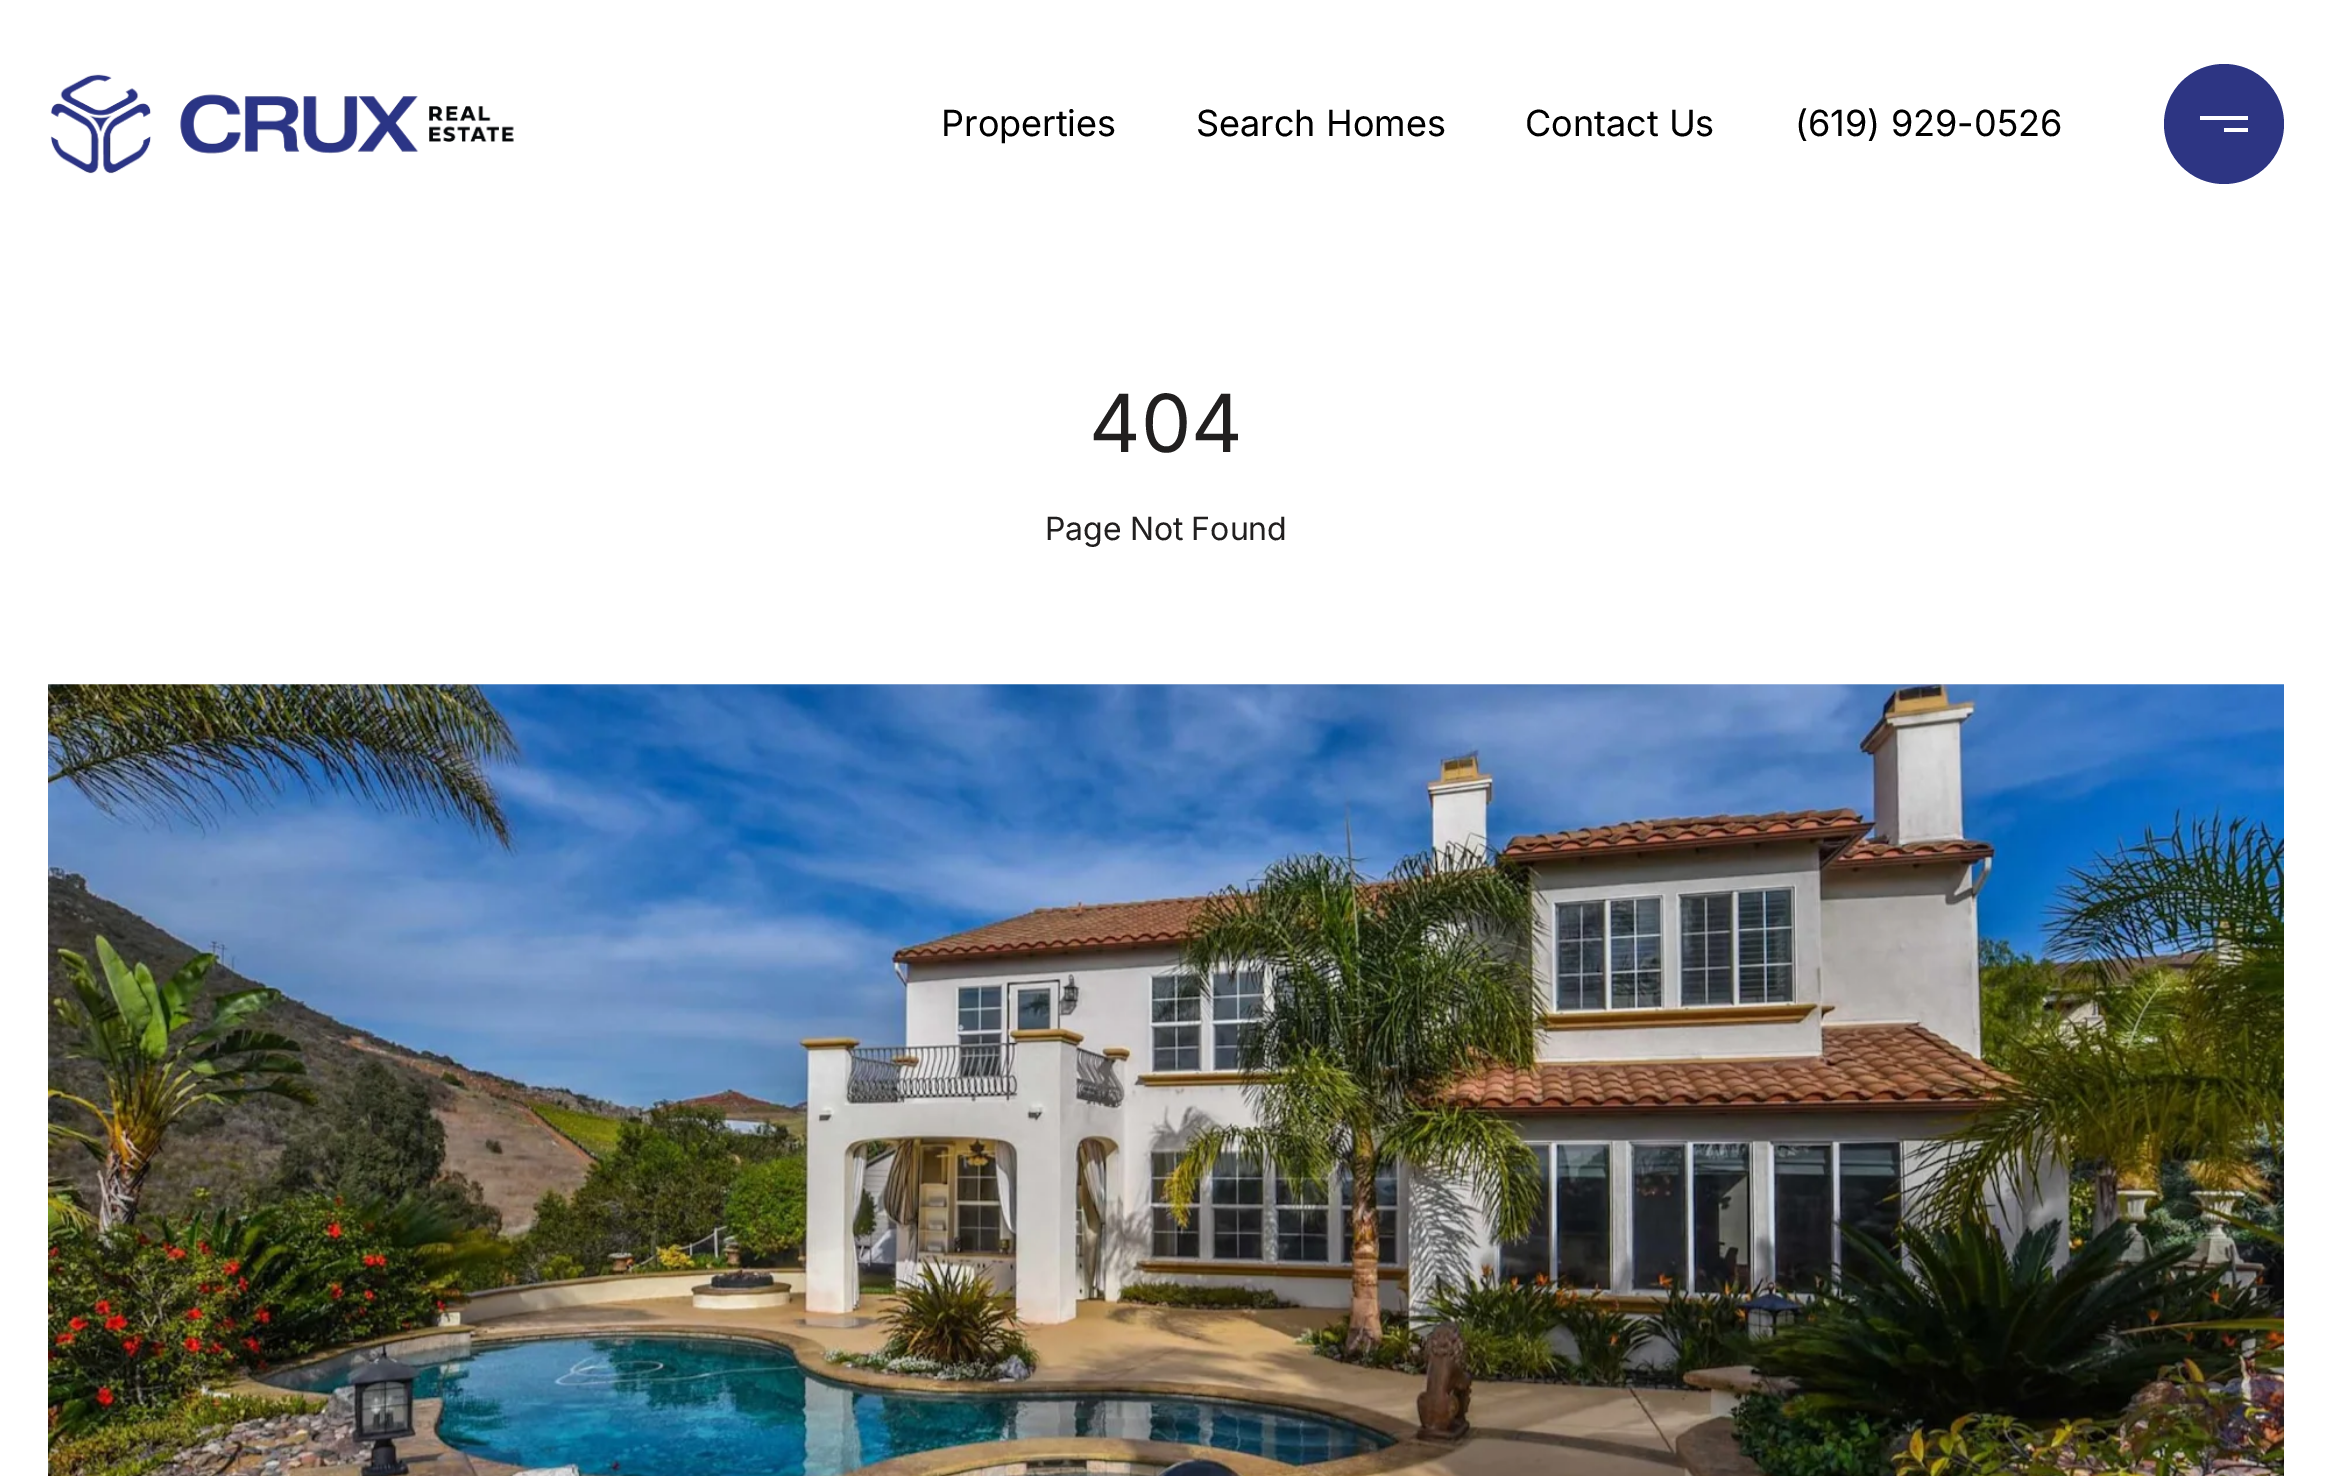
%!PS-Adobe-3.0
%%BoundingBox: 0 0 2332 1476
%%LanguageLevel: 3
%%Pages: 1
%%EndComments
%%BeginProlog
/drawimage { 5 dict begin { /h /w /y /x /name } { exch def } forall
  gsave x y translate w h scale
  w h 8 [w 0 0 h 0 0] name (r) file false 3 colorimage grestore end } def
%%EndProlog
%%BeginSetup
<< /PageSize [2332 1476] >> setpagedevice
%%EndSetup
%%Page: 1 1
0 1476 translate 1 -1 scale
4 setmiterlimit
1 setgray
0 0 2332 1476 rectfill
(images/1.raw) 50 74 464 100 drawimage
0.176 0.208 0.514 setrgbcolor
newpath 2224 124 60 0 360 arc closepath fill
1 setgray
2200 116 48 4 rectfill
2224 128 24 4 rectfill
(images/2.raw) 48 684 2236 792 drawimage
/Inter-Regular [36 0 0 -36 0 0] selectfont
0 setgray
941 136 moveto (Properties) show
1196 136 moveto (Search Homes) show
1525 136 moveto (Contact Us) show
1795 136 moveto (\(619\) 929-0526) show
/Inter-Regular [80 0 0 -80 0 0] selectfont
0.129 0.122 0.122 setrgbcolor
1089 452 moveto (404) show
/Inter-Regular [32 0 0 -32 0 0] selectfont
1045 540 moveto -1 0 32 (Page Not Found) widthshow
showpage
%%EOF
